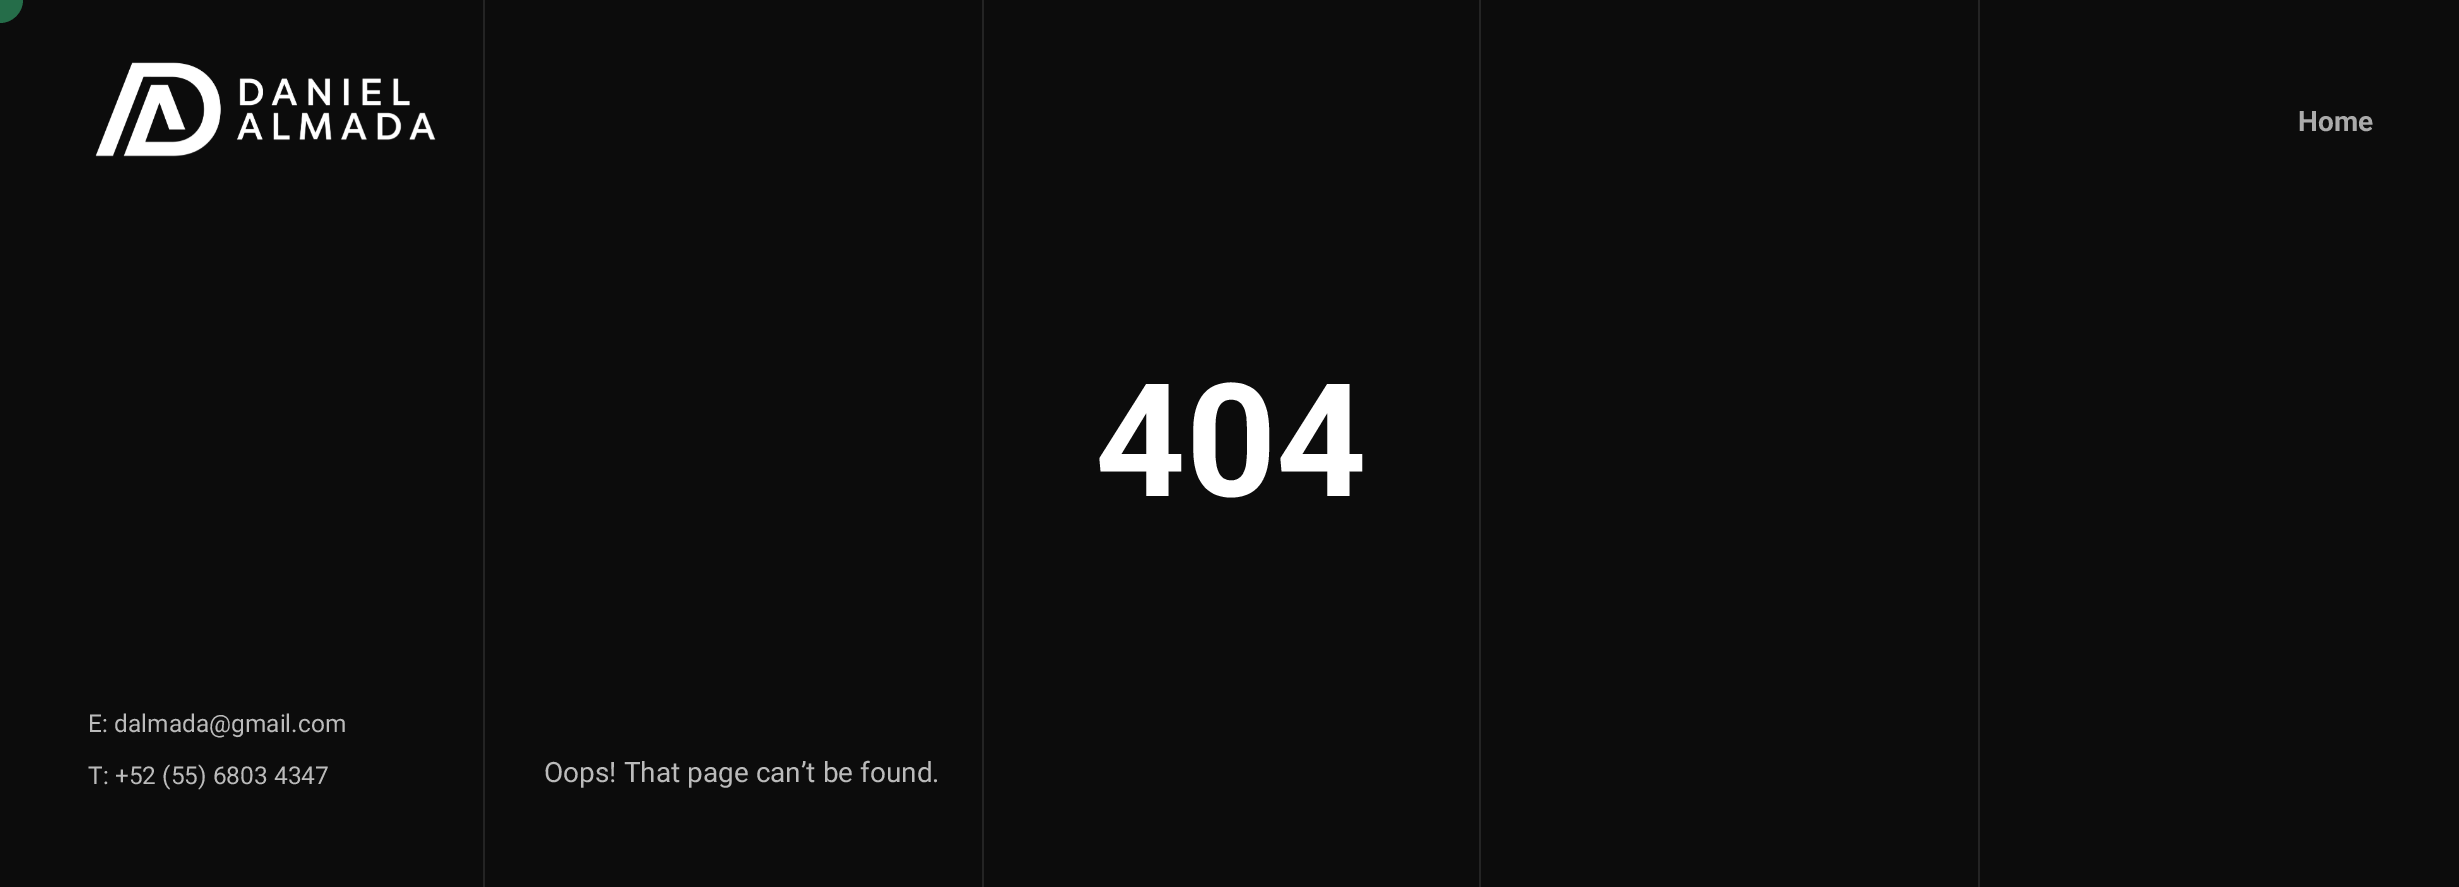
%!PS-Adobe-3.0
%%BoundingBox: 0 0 2459 887
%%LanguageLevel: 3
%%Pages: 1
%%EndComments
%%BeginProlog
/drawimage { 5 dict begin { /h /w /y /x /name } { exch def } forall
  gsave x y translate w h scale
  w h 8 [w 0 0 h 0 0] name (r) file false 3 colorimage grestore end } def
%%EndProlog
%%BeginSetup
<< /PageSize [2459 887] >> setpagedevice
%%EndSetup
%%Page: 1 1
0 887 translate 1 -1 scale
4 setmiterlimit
0.047 setgray
0 0 2459 887 rectfill
0.145 0.427 0.286 setrgbcolor
newpath 0 0 moveto 23 0 lineto 23 12.5 12.5 23 0 23 curveto closepath fill
0.141 setgray
483 0 2 887 rectfill
982 0 2 887 rectfill
1479 0 2 887 rectfill
1978 0 2 887 rectfill
(images/1.raw) 95 62 341 95 drawimage
/Roboto-Bold [28 0 0 -28 0 0] selectfont
0.667 setgray
2298 131 moveto (Home) show
/Roboto-Regular [24.5 0 0 -24.5 0 0] selectfont
0.733 setgray
88 732 moveto (E: dalmada@gmail.com) show
88 784 moveto (T: +52 \(55\) 6803 4347) show
/Roboto-Bold [158 0 0 -158 0 0] selectfont
1 setgray
1095 496 moveto (404) show
/Roboto-Regular [28 0 0 -28 0 0] selectfont
0.733 setgray
544 782 moveto (Oops! That page can’t be found.) show
showpage
%%EOF
